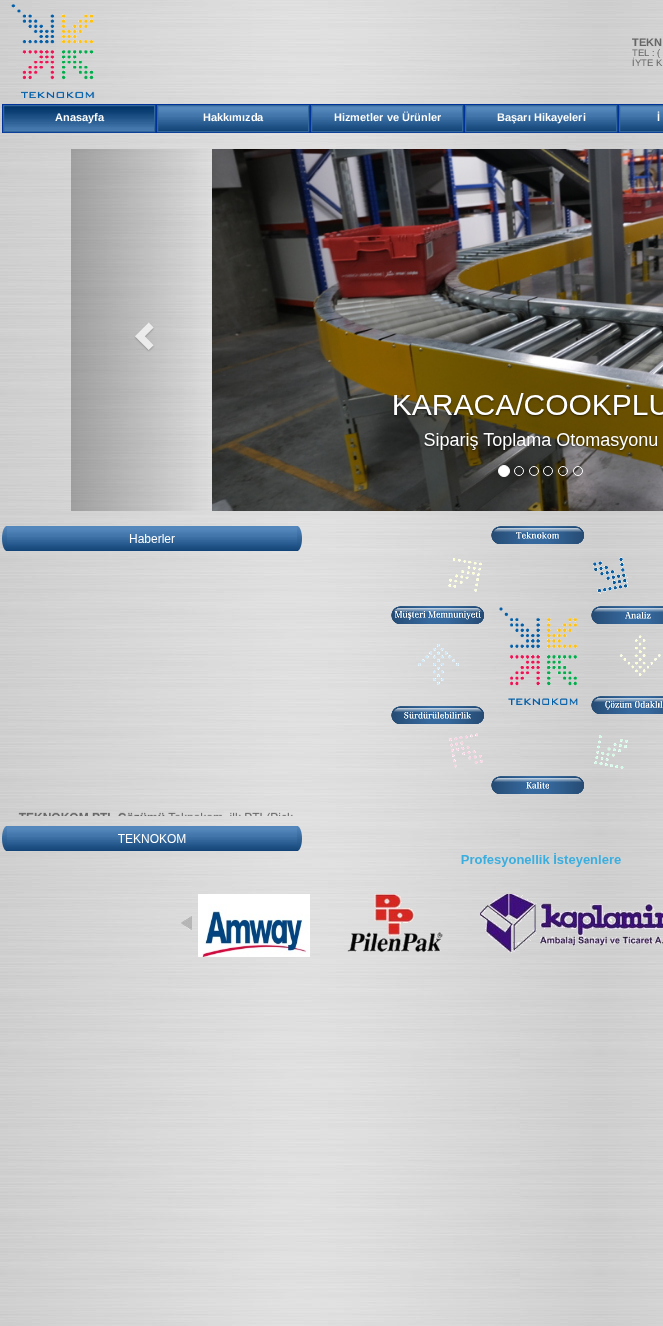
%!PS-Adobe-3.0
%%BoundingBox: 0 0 663 1326
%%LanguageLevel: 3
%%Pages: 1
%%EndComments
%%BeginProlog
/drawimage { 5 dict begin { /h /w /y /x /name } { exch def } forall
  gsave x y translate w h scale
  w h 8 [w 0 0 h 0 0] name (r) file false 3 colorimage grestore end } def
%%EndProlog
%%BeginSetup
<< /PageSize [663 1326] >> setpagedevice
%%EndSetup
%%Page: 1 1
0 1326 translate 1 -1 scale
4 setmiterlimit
1 setgray
0 0 663 1326 rectfill
(images/1.raw) 0 0 663 1326 drawimage
(images/2.raw) 11 4 84 94 drawimage
0 0.2 0.6 setrgbcolor
2 104 661 29 rectfill
(images/3.raw) 4 106 150 25 drawimage
0.2 0.4 0.6 setrgbcolor
3.5 105.5 151 26 rectstroke
(images/4.raw) 158 106 150 25 drawimage
157.5 105.5 151 26 rectstroke
(images/4.raw) 312 106 150 25 drawimage
311.5 105.5 151 26 rectstroke
(images/4.raw) 466 106 150 25 drawimage
465.5 105.5 151 26 rectstroke
(images/5.raw) 620 106 43 25 drawimage
619.5 105.5 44 26 rectstroke
(images/6.raw) 2 149 661 718 drawimage
(images/7.raw) 181 894 482 63 drawimage
(images/8.raw) 347 894 315 58 drawimage
/LiberationSans-Bold [11 0 0 -11 0 0] selectfont
0.4 setgray
632 46 moveto (TEKN) show
/LiberationSans-Regular [9.5 0 0 -9.5 0 0] selectfont
632 56 moveto (TEL : \() show
632 66 moveto (İYTE K) show
/LiberationSans-Bold [11 0 0 -11 0 0] selectfont
1 setgray
55 121 moveto (Anasayfa) show
203 121 moveto (Hakkımızda) show
334 121 moveto (Hizmetler ve Ürünler) show
497 121 moveto (Başarı Hikayeleri) show
657 121 moveto (İ) show
showpage
%%EOF
